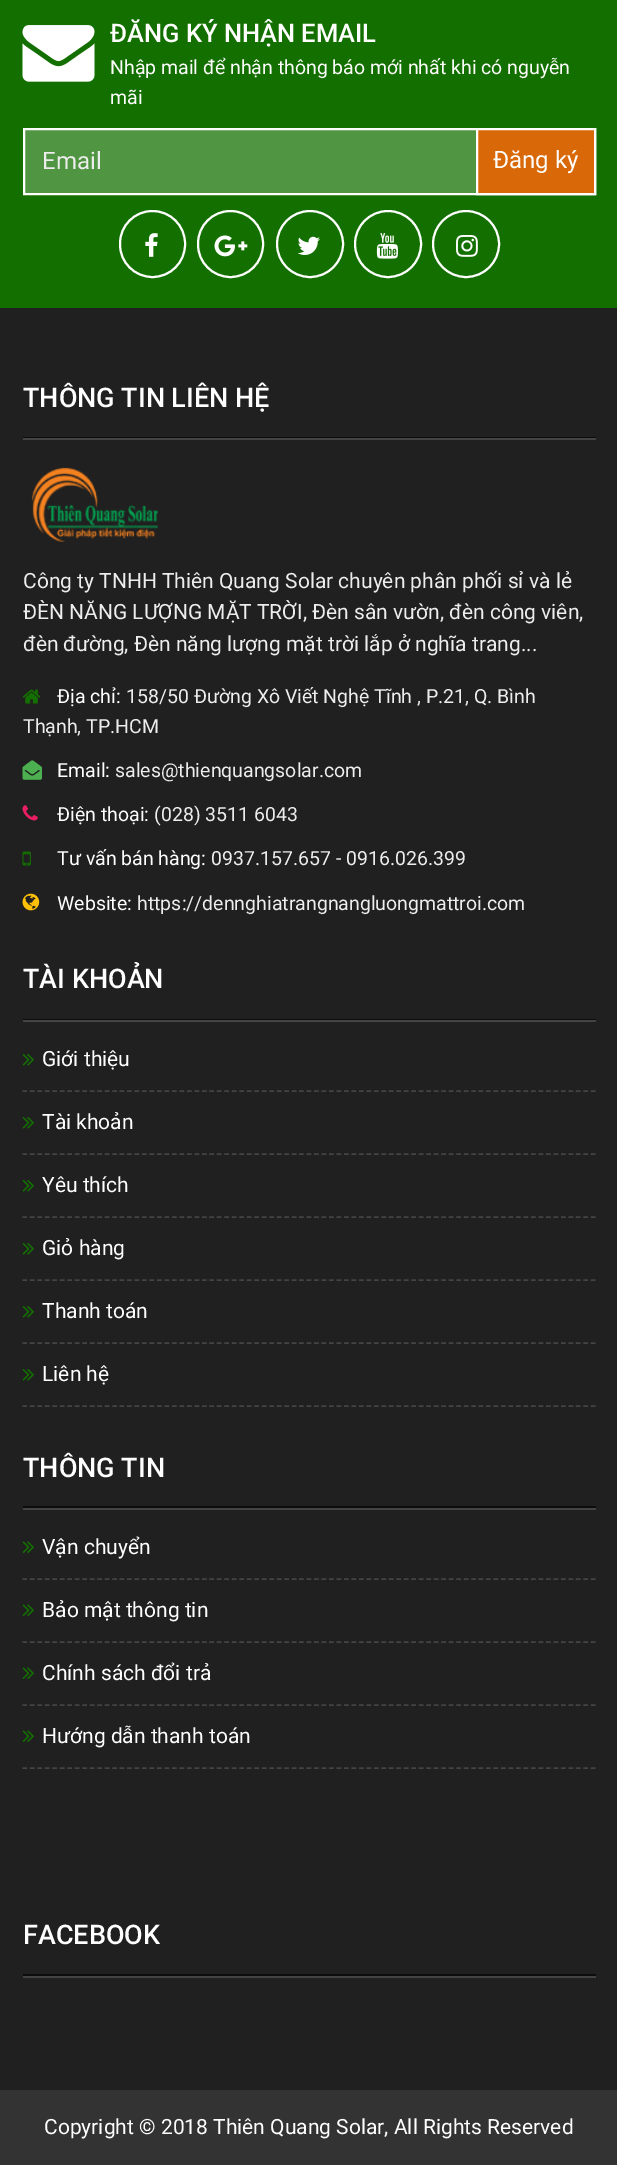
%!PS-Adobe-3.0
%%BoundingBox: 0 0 617 2165
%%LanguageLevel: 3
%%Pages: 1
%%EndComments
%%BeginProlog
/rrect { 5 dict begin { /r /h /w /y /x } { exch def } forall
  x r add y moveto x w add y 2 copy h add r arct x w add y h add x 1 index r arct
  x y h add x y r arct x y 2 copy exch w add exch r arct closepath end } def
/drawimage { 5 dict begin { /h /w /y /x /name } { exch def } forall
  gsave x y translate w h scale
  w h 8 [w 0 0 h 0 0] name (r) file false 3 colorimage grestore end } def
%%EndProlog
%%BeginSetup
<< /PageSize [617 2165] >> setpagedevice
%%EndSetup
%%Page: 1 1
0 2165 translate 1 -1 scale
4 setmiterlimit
0.075 0.439 0 setrgbcolor
0 0 617 2165 rectfill
(images/1.raw) 22 25 73 57 drawimage
0.314 0.584 0.259 setrgbcolor
25 130 451 63 rectfill
1 setgray
2 setlinewidth
24 129 571 65 rectstroke
0.851 0.408 0.031 setrgbcolor
newpath 477 129 moveto 595 129 lineto 595 194 lineto 477 194 lineto closepath gsave fill grestore
1 setgray
stroke
120 211 65 66 32.5 rrect stroke
(images/2.raw) 145 233 13 24 drawimage
198 211 65 66 32.5 rrect stroke
(images/3.raw) 214 235 34 22 drawimage
newpath 310 244 33 0 360 arc closepath stroke
(images/4.raw) 298 236 22 19 drawimage
newpath 388 244 33 0 360 arc closepath stroke
(images/5.raw) 376 233 22 26 drawimage
newpath 466 244 33 0 360 arc closepath stroke
(images/6.raw) 456 235 22 22 drawimage
0.125 setgray
0 308 617 1782 rectfill
0.047 setgray
23 437 573 1 rectfill
0.267 setgray
23 438 573 2 rectfill
(images/7.raw) 31 467 127 75 drawimage
(images/8.raw) 22 689 19 15 drawimage
(images/9.raw) 22 760 20 20 drawimage
(images/10.raw) 22 805 16 16 drawimage
(images/11.raw) 22 851 9 15 drawimage
(images/12.raw) 22 893 18 18 drawimage
0.047 setgray
23 1019 573 1 rectfill
0.267 setgray
23 1020 573 2 rectfill
1.5 setlinewidth
[4.5 2.98] 0 setdash
newpath 22.5 1091 moveto 595.5 1091 lineto stroke
(images/13.raw) 22 1054 12 12 drawimage
newpath 22.5 1154 moveto 595.5 1154 lineto stroke
(images/13.raw) 22 1117 12 12 drawimage
newpath 22.5 1217 moveto 595.5 1217 lineto stroke
(images/13.raw) 22 1180 12 12 drawimage
newpath 22.5 1280 moveto 595.5 1280 lineto stroke
(images/13.raw) 22 1243 12 12 drawimage
newpath 22.5 1343 moveto 595.5 1343 lineto stroke
(images/13.raw) 22 1306 12 12 drawimage
newpath 22.5 1406 moveto 595.5 1406 lineto stroke
(images/13.raw) 22 1369 12 12 drawimage
0.047 setgray
23 1506 573 2 rectfill
0.267 setgray
23 1508 573 2 rectfill
newpath 22.5 1579 moveto 595.5 1579 lineto stroke
(images/14.raw) 22 1541 12 12 drawimage
newpath 22.5 1642 moveto 595.5 1642 lineto stroke
(images/14.raw) 22 1604 12 12 drawimage
newpath 22.5 1705 moveto 595.5 1705 lineto stroke
(images/14.raw) 22 1667 12 12 drawimage
newpath 22.5 1768 moveto 595.5 1768 lineto stroke
(images/14.raw) 22 1730 12 12 drawimage
0.047 setgray
23 1974 573 2 rectfill
0.267 setgray
23 1976 573 2 rectfill
0.2 setgray
0 2090 617 75 rectfill
/Roboto-Medium [25.5 0 0 -25.5 0 0] selectfont
1 setgray
110 42 moveto (ĐĂNG KÝ NHẬN EMAIL) show
/Roboto-Regular [19.5 0 0 -19.5 0 0] selectfont
110 74 moveto (Nhập mail để nhận thông báo mới nhất khi có nguyễn) show
110 104 moveto (mãi) show
/Roboto-Regular [24 0 0 -24 0 0] selectfont
0.929 setgray
42 169 moveto (Email) show
1 setgray
493 168 moveto (Đăng ký) show
/Roboto-Medium [27 0 0 -27 0 0] selectfont
23 407 moveto (THÔNG TIN LIÊN HỆ) show
/Roboto-Regular [21 0 0 -21 0 0] selectfont
0.929 setgray
23 588 moveto (Công ty TNHH Thiên Quang Solar chuyên phân phối sỉ và lẻ) show
23 619 moveto (ĐÈN NĂNG LƯỢNG MẶT TRỜI, Đèn sân vườn, đèn công viên,) show
23 651 moveto (đèn đường, Đèn năng lượng mặt trời lắp ở nghĩa trang...) show
/Roboto-Regular [19.5 0 0 -19.5 0 0] selectfont
1 setgray
57 703 moveto (Địa chỉ:) show
0.929 setgray
126 703 moveto (158/50 Đường Xô Viết Nghệ Tĩnh , P.21, Q. Bình) show
23 733 moveto (Thạnh, TP.HCM) show
1 setgray
57 777 moveto (Email:) show
0.929 setgray
115 777 moveto (sales@thienquangsolar.com) show
1 setgray
57 821 moveto (Điện thoại:) show
0.929 setgray
154 821 moveto (\(028\) 3511 6043) show
1 setgray
57 865 moveto (Tư vấn bán hàng:) show
0.929 setgray
211 865 moveto (0937.157.657 - 0916.026.399) show
1 setgray
57 910 moveto (Website:) show
0.929 setgray
137 910 moveto (https://dennghiatrangnangluongmattroi.com) show
/Roboto-Medium [27 0 0 -27 0 0] selectfont
1 setgray
23 988 moveto (TÀI KHOẢN) show
/Roboto-Regular [21 0 0 -21 0 0] selectfont
42 1066 moveto (Giới thiệu) show
42 1129 moveto (Tài khoản) show
42 1192 moveto (Yêu thích) show
42 1255 moveto (Giỏ hàng) show
42 1318 moveto (Thanh toán) show
42 1381 moveto (Liên hệ) show
/Roboto-Medium [27 0 0 -27 0 0] selectfont
23 1477 moveto (THÔNG TIN) show
/Roboto-Regular [21 0 0 -21 0 0] selectfont
42 1554 moveto (Vận chuyển) show
42 1617 moveto (Bảo mật thông tin) show
42 1680 moveto (Chính sách đổi trả) show
42 1743 moveto (Hướng dẫn thanh toán) show
/Roboto-Medium [27 0 0 -27 0 0] selectfont
23 1944 moveto (FACEBOOK) show
/Roboto-Regular [21 0 0 -21 0 0] selectfont
44 2134 moveto (Copyright © 2018 Thiên Quang Solar, All Rights Reserved) show
showpage
%%EOF
